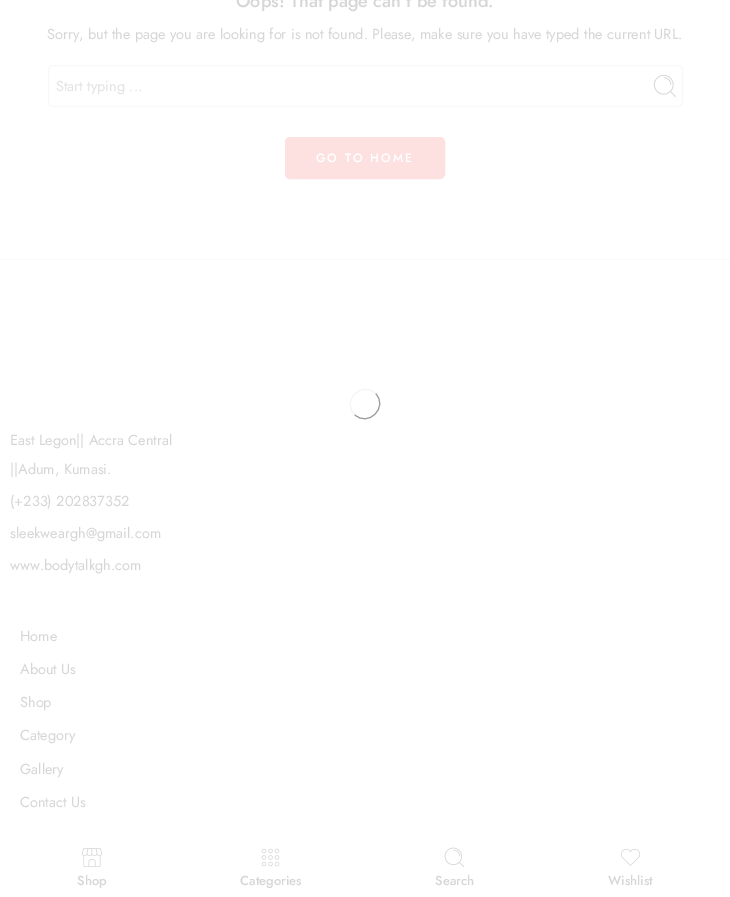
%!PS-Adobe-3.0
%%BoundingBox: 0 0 730 897
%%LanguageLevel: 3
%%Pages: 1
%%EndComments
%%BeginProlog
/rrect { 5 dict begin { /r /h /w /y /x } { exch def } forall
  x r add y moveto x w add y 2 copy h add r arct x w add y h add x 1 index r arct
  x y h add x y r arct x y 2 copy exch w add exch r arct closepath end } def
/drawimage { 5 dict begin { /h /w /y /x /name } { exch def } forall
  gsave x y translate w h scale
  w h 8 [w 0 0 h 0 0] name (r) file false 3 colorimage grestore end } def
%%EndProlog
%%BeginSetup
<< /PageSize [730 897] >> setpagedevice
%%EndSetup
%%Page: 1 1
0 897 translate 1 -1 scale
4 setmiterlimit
1 setgray
0 0 730 897 rectfill
0.973 setgray
48.5 65.5 634 41 4.5 rrect stroke
(images/1.raw) 653 74 24 24 drawimage
0.992 0.882 0.882 setrgbcolor
285.5 137.5 159 41 4.5 rrect gsave fill grestore
stroke
0.984 setgray
0 259 730 1 rectfill
0.604 setgray
newpath 375.5 393.5 moveto 389 407 368 428 354.5 414.5 curveto stroke
0.961 setgray
newpath 354.5 414.5 moveto 341 401 362 380 375.5 393.5 curveto stroke
(images/2.raw) 81 848 22 20 drawimage
(images/3.raw) 261 848 19 19 drawimage
(images/4.raw) 444 847 21 21 drawimage
(images/5.raw) 620 848 21 18 drawimage
/Jost-Medium [18 0 0 -18 0 0] selectfont
0.839 setgray
236 7 moveto (Oops! That page can’t be found.) show
/Jost-Regular [14.5 0 0 -14.5 0 0] selectfont
47 39 moveto (Sorry, but the page you are looking for is not found. Please, make sure you have typed the current URL.) show
0.89 setgray
56 91 moveto (Start typing ...) show
/Jost-Medium [12 0 0 -12 0 0] selectfont
1 setgray
316 162 moveto 2 0 (GO TO HOME) ashow
/Jost-Regular [14.5 0 0 -14.5 0 0] selectfont
0.839 setgray
10 445 moveto (East Legon|| Accra Central) show
10 474 moveto (||Adum, Kumasi.) show
10 506 moveto (\(+233\) 202837352) show
10 538 moveto (sleekweargh@gmail.com) show
10 570 moveto (www.bodytalkgh.com) show
20 641 moveto (Home) show
20 674 moveto (About Us) show
20 707 moveto (Shop) show
20 740 moveto (Category) show
20 774 moveto (Gallery) show
20 807 moveto (Contact Us) show
/Jost-Medium [13 0 0 -13 0 0] selectfont
77 885 moveto (Shop) show
240 885 moveto (Categories) show
435 885 moveto (Search) show
608 885 moveto (Wishlist) show
showpage
%%EOF
